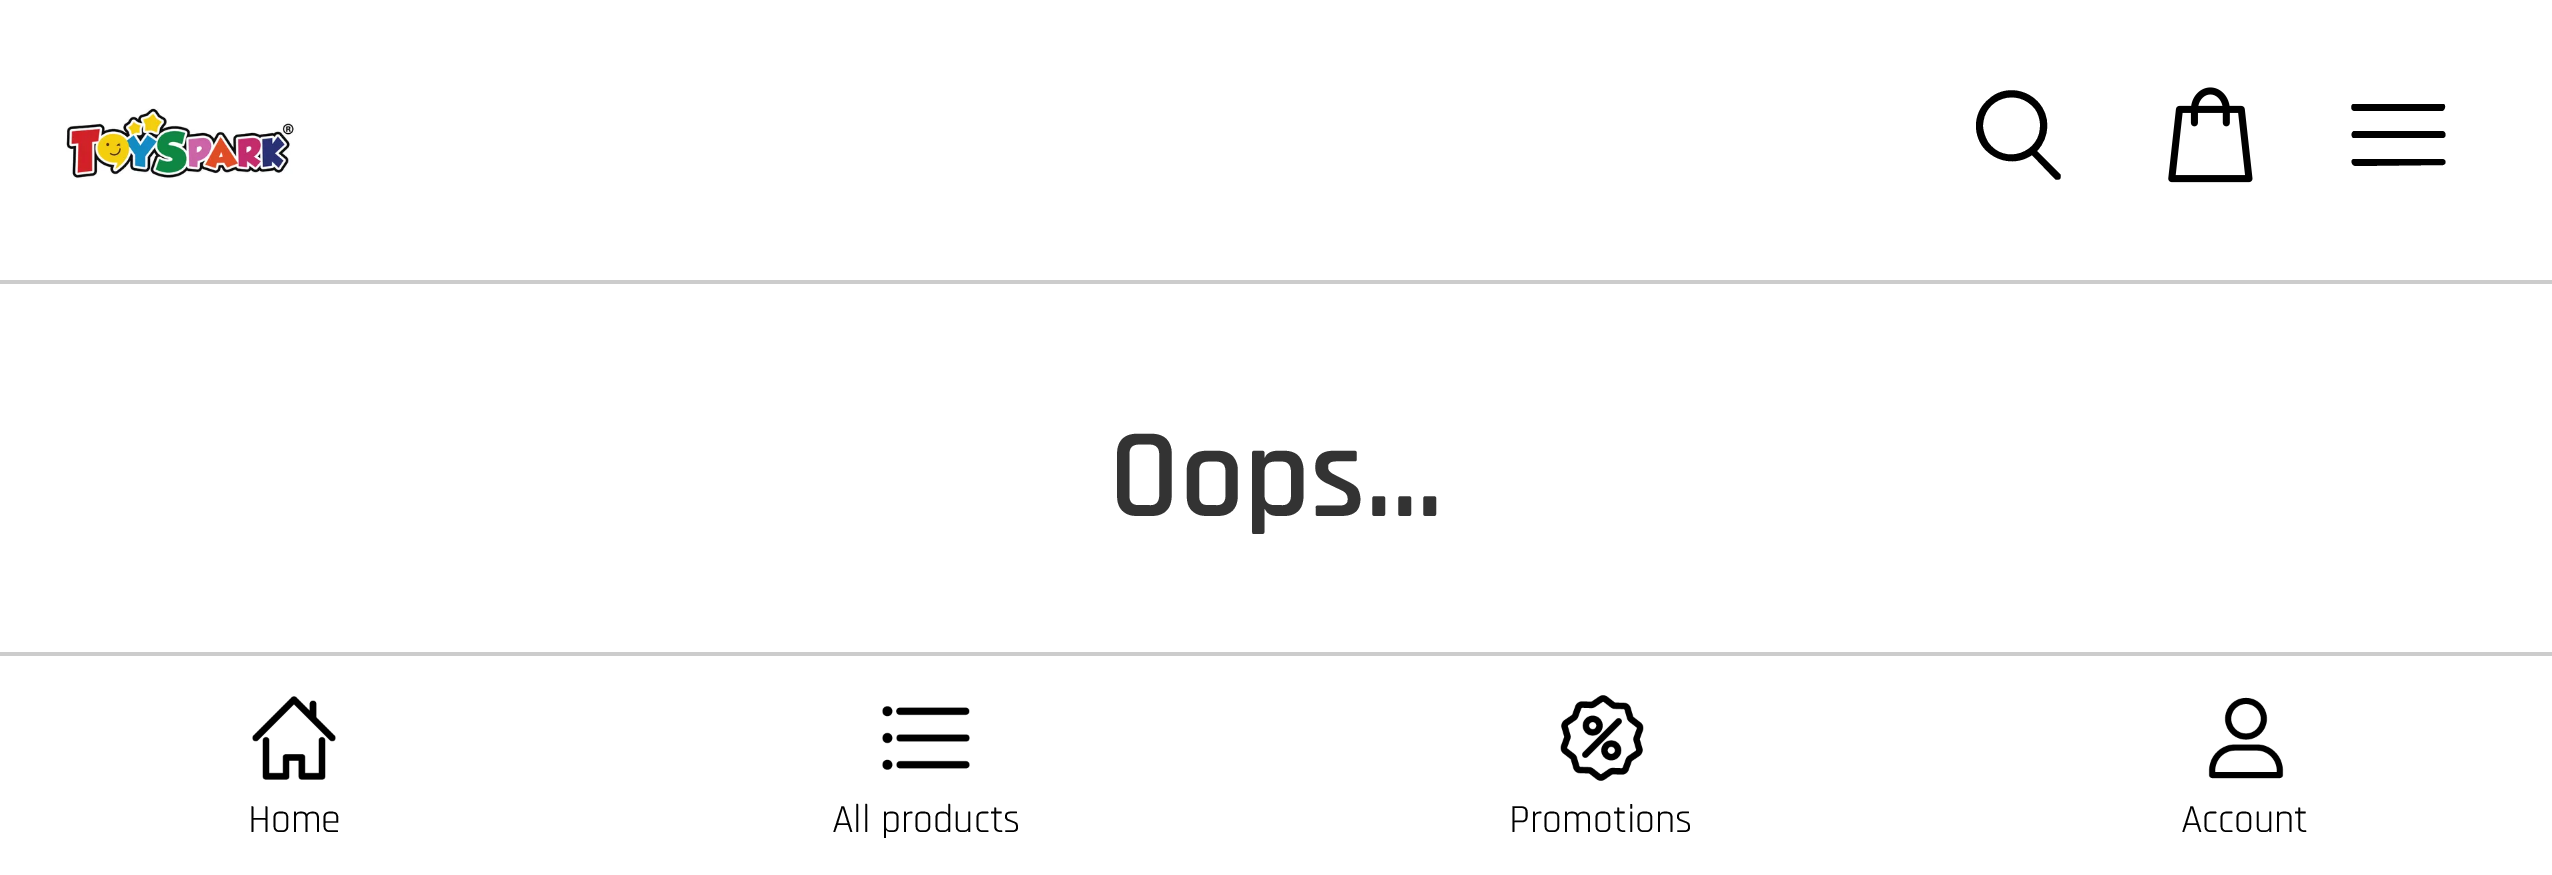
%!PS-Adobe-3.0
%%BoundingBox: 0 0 2552 875
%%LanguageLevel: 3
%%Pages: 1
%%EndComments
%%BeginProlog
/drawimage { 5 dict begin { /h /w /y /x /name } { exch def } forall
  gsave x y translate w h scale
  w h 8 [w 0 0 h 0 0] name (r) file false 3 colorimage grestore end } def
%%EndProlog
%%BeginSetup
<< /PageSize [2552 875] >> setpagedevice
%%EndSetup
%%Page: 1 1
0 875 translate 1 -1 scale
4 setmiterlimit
1 setgray
0 0 2552 875 rectfill
0.8 setgray
0 280 2552 4 rectfill
(images/1.raw) 66 108 230 71 drawimage
0 setgray
newpath 2037 151 moveto 2050 137 2051 116 2038 102 curveto 2025 88 2003 86 1989 99 curveto 1974 111 1972 132 1983 147 curveto 1995 162 2016 166 2032 155 curveto 2055 179 lineto 2056 180 2058 180 2060 179 curveto 2061 177 2061 175 2060 174 curveto closepath 1983 126 moveto 1983 98 2018 87 2035 109 curveto 2038 113 2040 119 2040 124 curveto 2042 153 2004 166 1988 142 curveto 1985 137 1983 131 1983 126 curveto closepath fill
(images/2.raw) 2168 87 85 96 drawimage
newpath 2355 111 moveto 2442 111 lineto 2445 110 2446 106 2444 104 curveto 2442 104 lineto 2353 104 lineto 2350 106 2351 111 2355 111 curveto closepath fill
newpath 2442 131 moveto 2354 131 lineto 2351 132 2351 136 2353 138 curveto 2355 138 lineto 2443 138 lineto 2447 137 2446 131 2442 131 curveto closepath fill
newpath 2442 159 moveto 2354 159 lineto 2351 159 2351 163 2353 165 curveto 2355 166 lineto 2443 165 lineto 2447 164 2446 159 2442 159 curveto closepath fill
0.8 setgray
0 652 2552 4 rectfill
(images/3.raw) 252 696 84 84 drawimage
(images/4.raw) 882 706 88 64 drawimage
(images/5.raw) 1560 695 84 86 drawimage
(images/6.raw) 2208 697 76 82 drawimage
/Rajdhani-SemiBold [128 0 0 -128 0 0] selectfont
0.2 setgray
1109 516 moveto (Oops...) show
/Rajdhani-Regular [40 0 0 -40 0 0] selectfont
0 setgray
248 832 moveto (Home) show
832 832 moveto (All products) show
1509 832 moveto (Promotions) show
2181 832 moveto (Account) show
showpage
%%EOF
